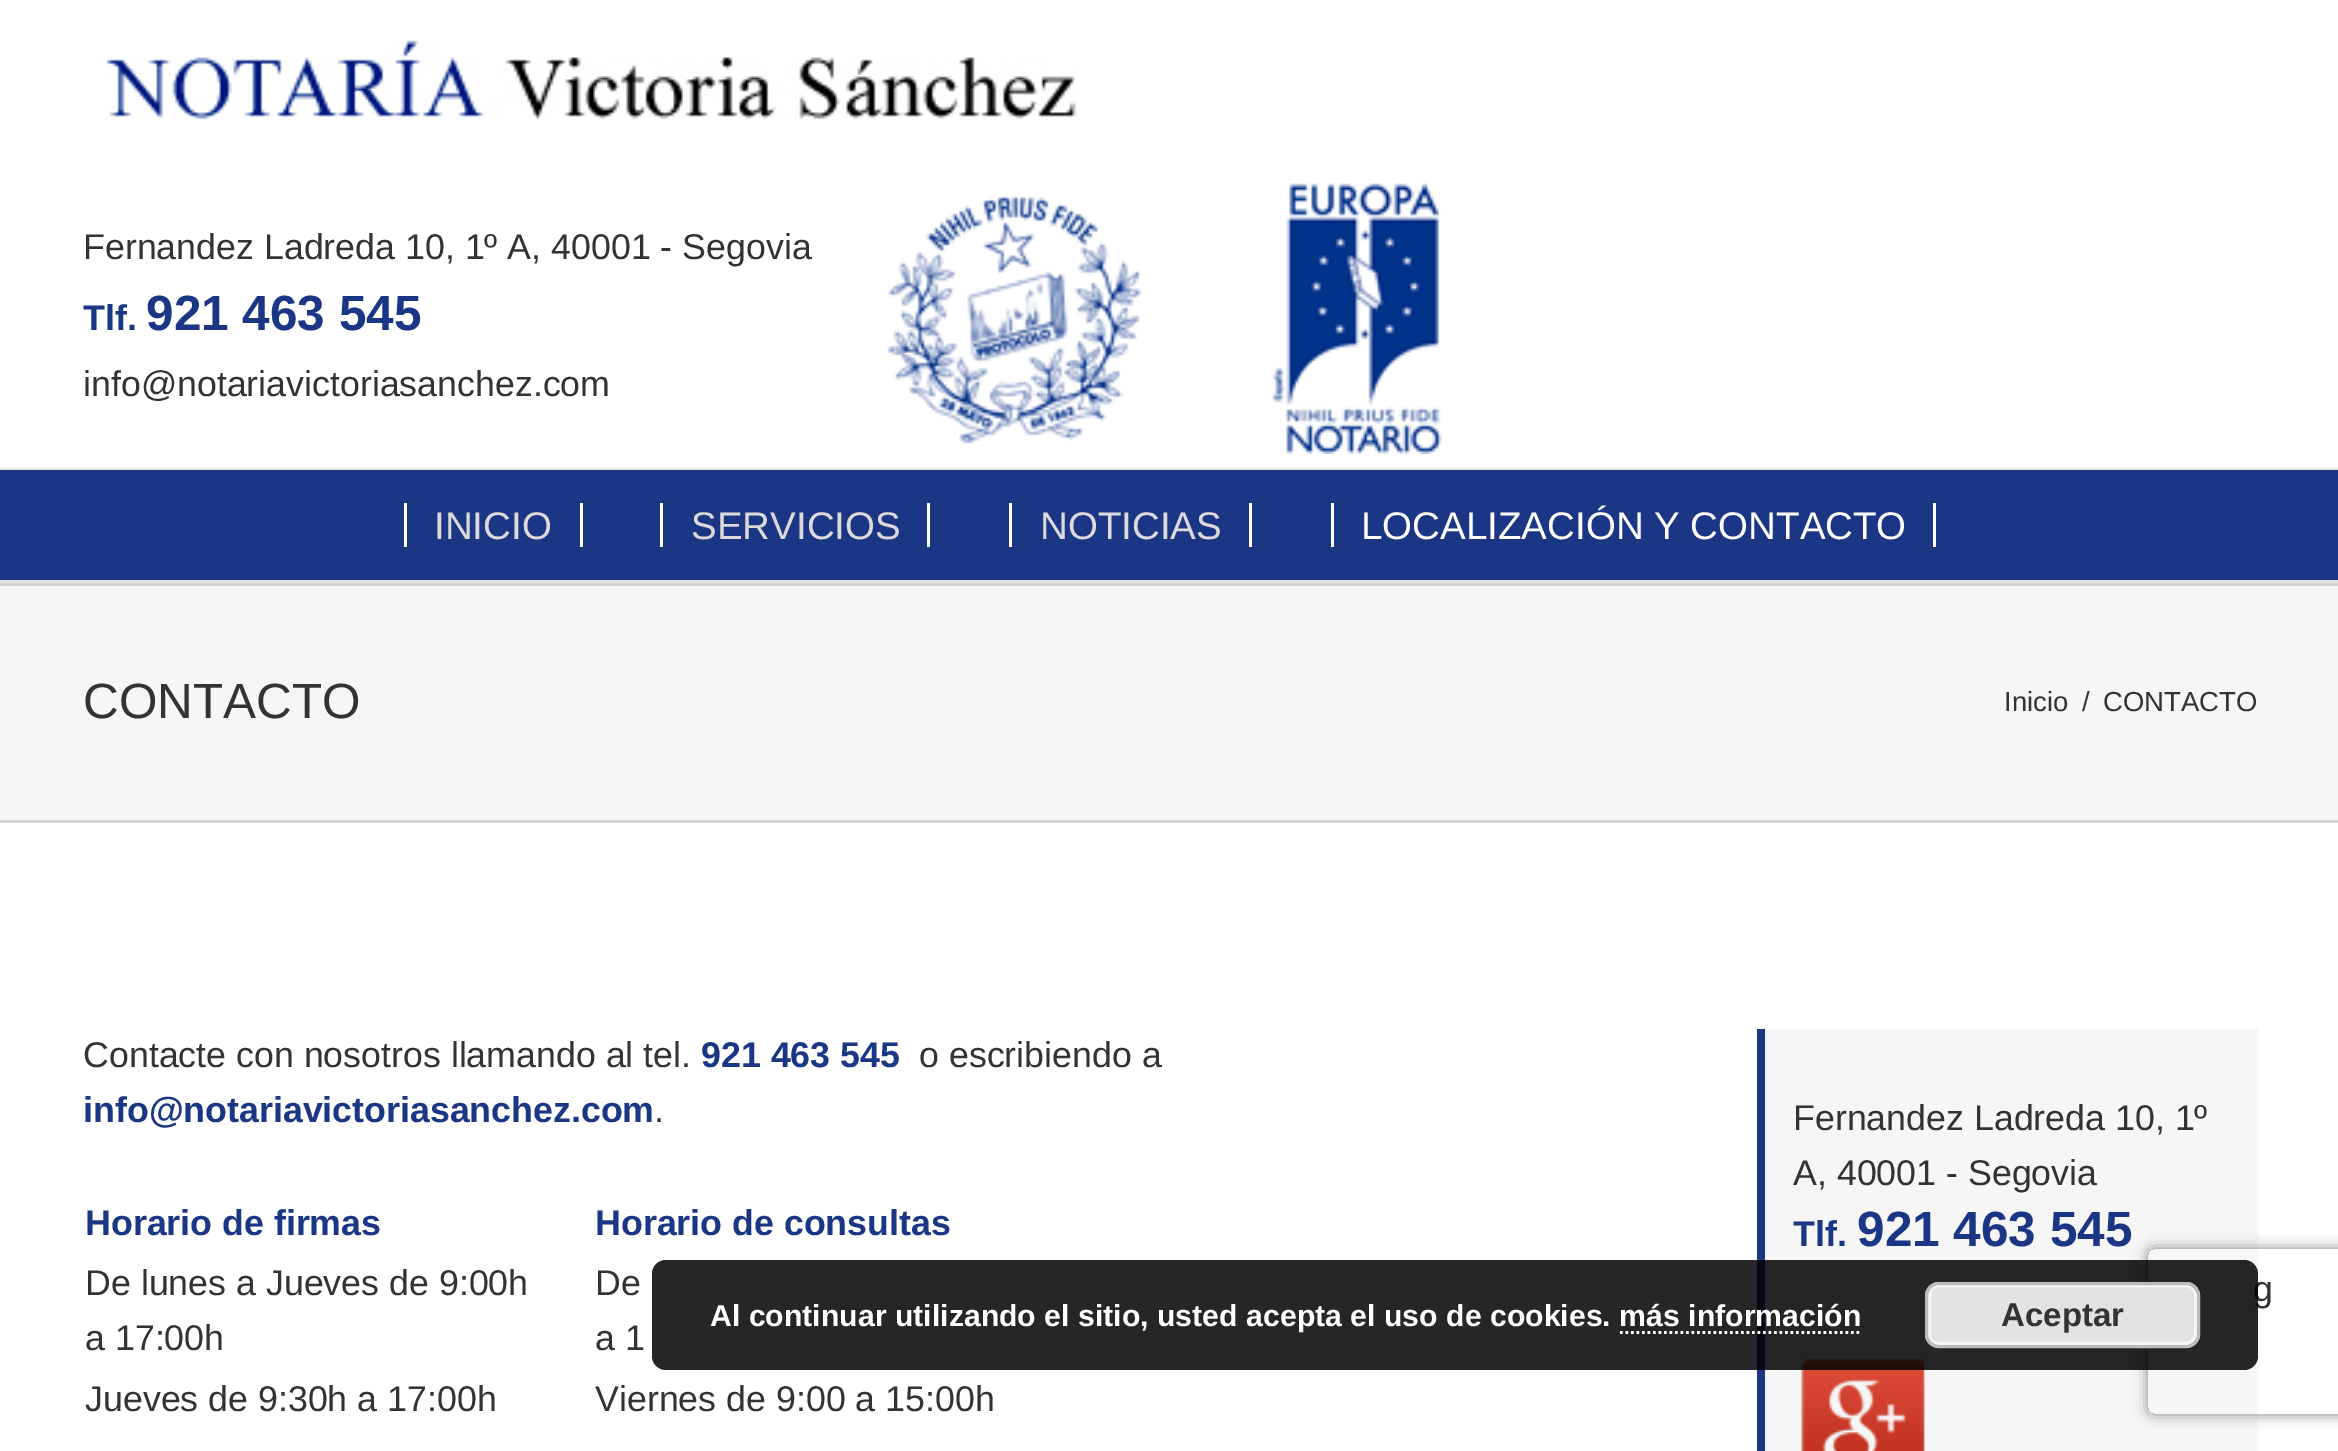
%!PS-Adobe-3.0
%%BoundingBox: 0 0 2338 1451
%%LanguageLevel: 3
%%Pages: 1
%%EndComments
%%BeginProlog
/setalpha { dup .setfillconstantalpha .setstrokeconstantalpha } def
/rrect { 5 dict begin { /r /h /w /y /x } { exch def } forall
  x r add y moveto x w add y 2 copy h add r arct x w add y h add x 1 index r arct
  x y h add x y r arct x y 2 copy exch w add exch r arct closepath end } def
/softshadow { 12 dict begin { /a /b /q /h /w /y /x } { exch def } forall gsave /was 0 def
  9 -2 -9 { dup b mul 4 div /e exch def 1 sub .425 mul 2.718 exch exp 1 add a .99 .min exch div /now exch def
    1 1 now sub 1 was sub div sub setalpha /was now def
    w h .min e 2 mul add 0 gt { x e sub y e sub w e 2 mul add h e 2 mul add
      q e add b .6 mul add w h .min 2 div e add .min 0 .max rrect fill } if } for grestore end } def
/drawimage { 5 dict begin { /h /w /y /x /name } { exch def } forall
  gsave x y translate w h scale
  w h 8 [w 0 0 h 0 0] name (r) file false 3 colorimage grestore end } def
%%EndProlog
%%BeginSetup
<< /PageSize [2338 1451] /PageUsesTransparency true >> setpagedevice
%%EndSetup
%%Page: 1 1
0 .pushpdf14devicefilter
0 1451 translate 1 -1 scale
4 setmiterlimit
1 setgray
0 0 2338 1451 rectfill
0.898 setgray
0 468 2338 2 rectfill
(images/1.raw) 106 40 971 80 drawimage
(images/2.raw) 887 183 555 271 drawimage
0.106 0.212 0.522 setrgbcolor
0 470 2338 110 rectfill
0.898 setgray
0 580 2338 3 rectfill
1 setgray
580 503 3 44 rectfill
404 503 3 44 rectfill
927 503 3 44 rectfill
660 503 3 44 rectfill
1249 503 3 44 rectfill
1009 503 3 44 rectfill
1933 503 3 44 rectfill
1331 503 3 44 rectfill
0.965 setgray
0 586 2338 234 rectfill
0.824 0.827 0.831 setrgbcolor
0 583 2338 3 rectfill
0 820 2338 3 rectfill
0.965 setgray
1765 1029 493 422 rectfill
0.106 0.212 0.522 setrgbcolor
1757 1029 8 422 rectfill
(images/3.raw) 1801 1359 124 92 drawimage
gsave
newpath 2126 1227 moveto 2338 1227 lineto 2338 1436 lineto 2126 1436 lineto closepath 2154 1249 moveto 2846 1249 lineto 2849.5 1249 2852 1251.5 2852 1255 curveto 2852 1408 lineto 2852 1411.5 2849.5 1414 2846 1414 curveto 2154 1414 lineto 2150.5 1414 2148 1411.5 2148 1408 curveto 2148 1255 lineto 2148 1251.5 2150.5 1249 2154 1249 curveto closepath eoclip newpath
0.502 setgray
2148 1249 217 165 6 7 1 softshadow
grestore
/LiberationSans-Regular [35.75 0 0 -35.75 0 0] selectfont
0.2 setgray
83 259 moveto (Fernandez Ladreda 10, 1º A, 40001 - Segovia) show
/LiberationSans-Bold [35.75 0 0 -35.75 0 0] selectfont
0.106 0.212 0.522 setrgbcolor
83 330 moveto (Tlf.) show
/LiberationSans-Bold [49.5 0 0 -49.5 0 0] selectfont
146 330 moveto (921 463 545) show
/LiberationSans-Regular [35.75 0 0 -35.75 0 0] selectfont
0.2 setgray
83 396 moveto (info@notariavictoriasanchez.com) show
/LiberationSans-Regular [38.5 0 0 -38.5 0 0] selectfont
0.863 0.855 0.859 setrgbcolor
434 539 moveto (INICIO) show
691 539 moveto (SERVICIOS) show
1040 539 moveto (NOTICIAS) show
1 setgray
1361 539 moveto (LOCALIZACIÓN Y CONTACTO) show
/LiberationSans-Regular [49.5 0 0 -49.5 0 0] selectfont
0.2 setgray
83 718 moveto (CONTACTO) show
/LiberationSans-Regular [27.5 0 0 -27.5 0 0] selectfont
2004 711 moveto (Inicio) show
2082 711 moveto (/) show
2103 711 moveto (CONTACTO) show
/LiberationSans-Regular [35.75 0 0 -35.75 0 0] selectfont
83 1067 moveto (Contacte con nosotros llamando al tel.) show
/LiberationSans-Bold [35.75 0 0 -35.75 0 0] selectfont
0.106 0.212 0.522 setrgbcolor
701 1067 moveto (921 463 545) show
/LiberationSans-Regular [35.75 0 0 -35.75 0 0] selectfont
0.2 setgray
919 1067 moveto (o escribiendo a) show
/LiberationSans-Bold [35.75 0 0 -35.75 0 0] selectfont
0.106 0.212 0.522 setrgbcolor
83 1122 moveto (info@notariavictoriasanchez.com) show
/LiberationSans-Regular [35.75 0 0 -35.75 0 0] selectfont
0.2 setgray
654 1122 moveto (.) show
/LiberationSans-Bold [35.75 0 0 -35.75 0 0] selectfont
0.106 0.212 0.522 setrgbcolor
85 1235 moveto (Horario de firmas) show
595 1235 moveto (Horario de consultas) show
/LiberationSans-Regular [35.75 0 0 -35.75 0 0] selectfont
0.2 setgray
85 1295 moveto (De lunes a Jueves de 9:00h) show
85 1350 moveto (a 17:00h) show
595 1295 moveto (De) show
595 1350 moveto (a 1) show
85 1411 moveto (Jueves de 9:30h a 17:00h) show
595 1411 moveto (Viernes de 9:00 a 15:00h) show
1793 1130 moveto (Fernandez Ladreda 10, 1º) show
1793 1185 moveto (A, 40001 - Segovia) show
/LiberationSans-Bold [35.75 0 0 -35.75 0 0] selectfont
0.106 0.212 0.522 setrgbcolor
1793 1246 moveto (Tlf.) show
/LiberationSans-Bold [49.5 0 0 -49.5 0 0] selectfont
1857 1246 moveto (921 463 545) show
/LiberationSans-Regular [35.75 0 0 -35.75 0 0] selectfont
0.2 setgray
2253 1301 moveto (g) show
0.85 setalpha
0 setgray
652 1260 1606 110 14 rrect fill
/LiberationSans-Bold [30.25 0 0 -30.25 0 0] selectfont
1 setalpha
1 setgray
710 1326 moveto (Al continuar utilizando el sitio, usted acepta el uso de cookies. más información) show
0.89 setgray
1925 1282 275 66 14 rrect fill
0.965 setgray
3 setlinewidth
1929.5 1285.5 266 58 9.5 rrect stroke
0.733 setgray
1926.5 1283.5 272 63 12.5 rrect stroke
/LiberationSans-Bold [33 0 0 -33 0 0] selectfont
0.2 setgray
2001 1326 moveto (Aceptar) show
1 setgray
2.8 setlinewidth
[2.75 2.75] 0 setdash
newpath 1620 1332.5 moveto 1862 1332.5 lineto stroke
.poppdf14devicefilter showpage
%%EOF
